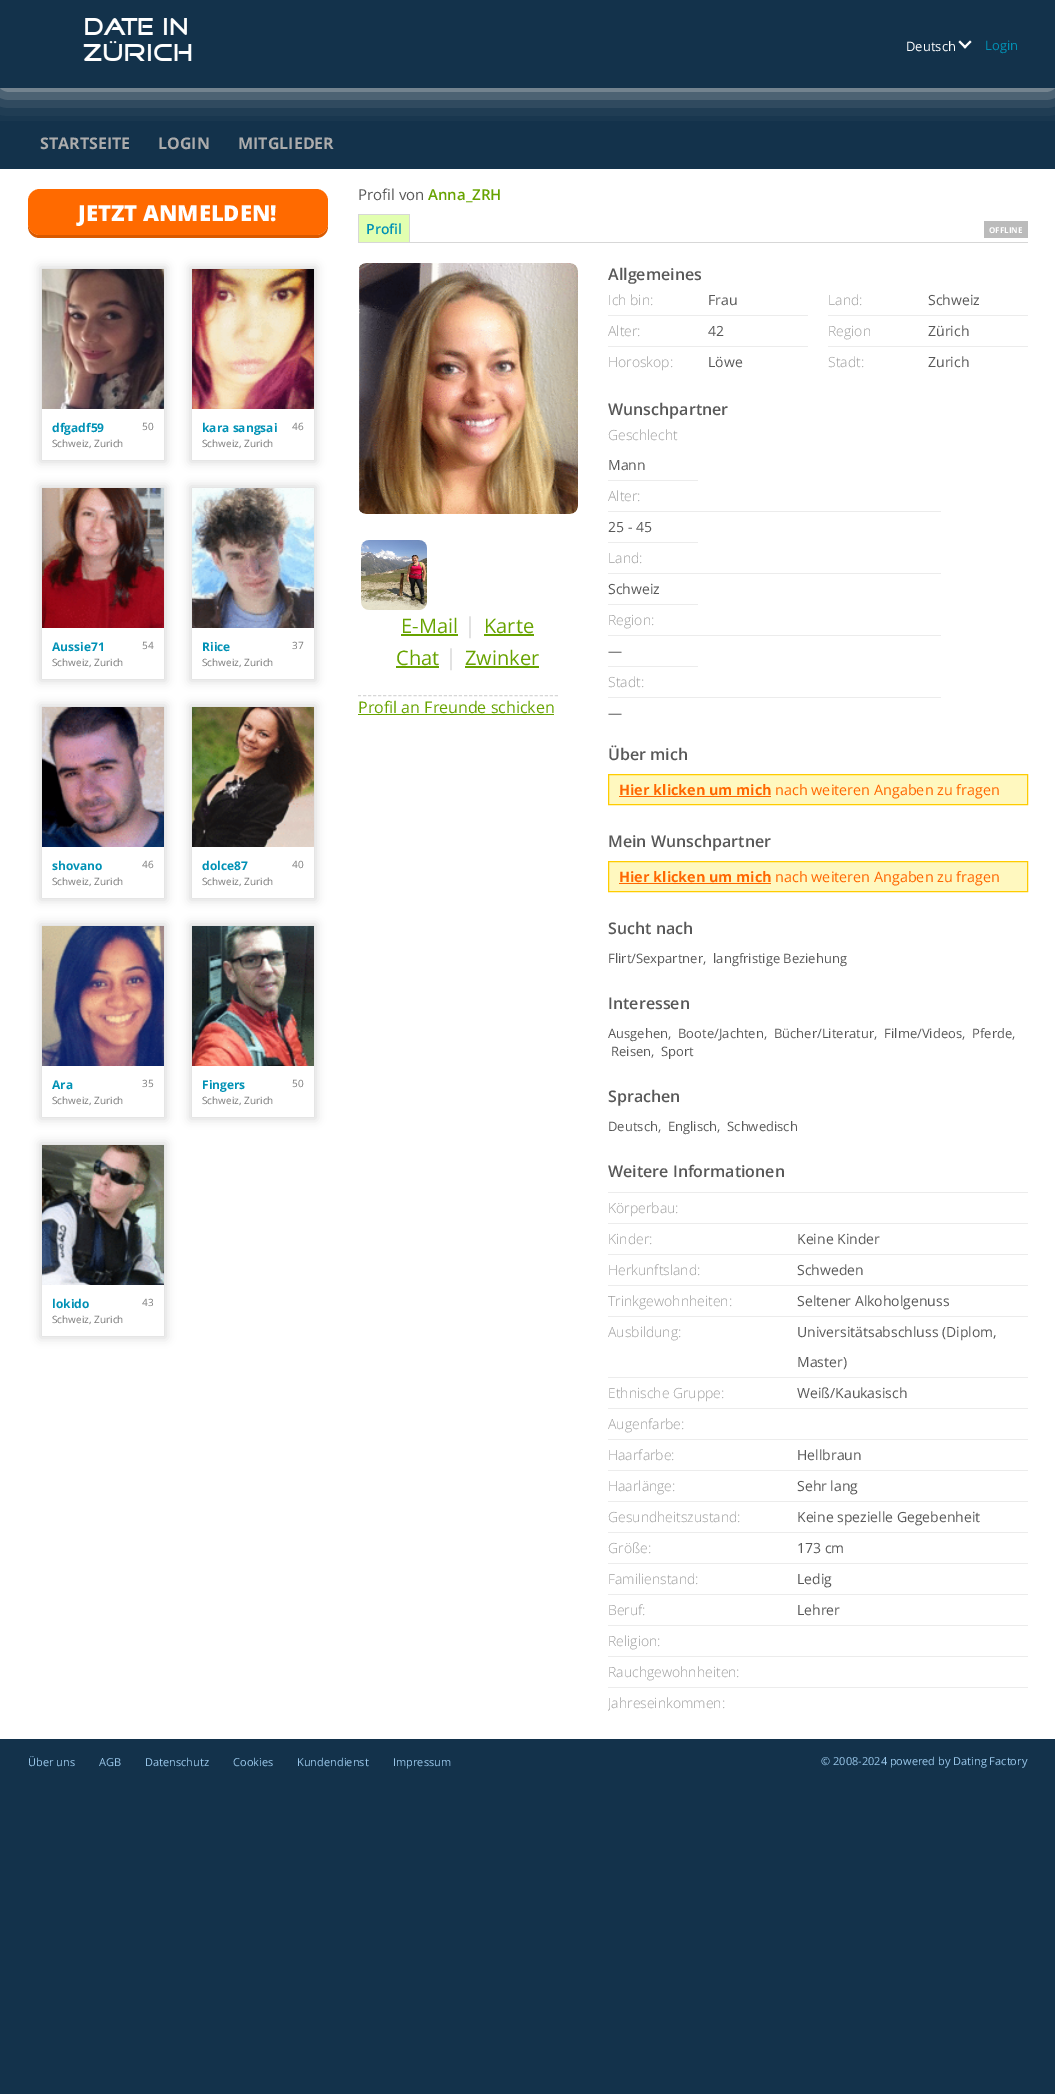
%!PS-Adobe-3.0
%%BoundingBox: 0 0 1055 2094
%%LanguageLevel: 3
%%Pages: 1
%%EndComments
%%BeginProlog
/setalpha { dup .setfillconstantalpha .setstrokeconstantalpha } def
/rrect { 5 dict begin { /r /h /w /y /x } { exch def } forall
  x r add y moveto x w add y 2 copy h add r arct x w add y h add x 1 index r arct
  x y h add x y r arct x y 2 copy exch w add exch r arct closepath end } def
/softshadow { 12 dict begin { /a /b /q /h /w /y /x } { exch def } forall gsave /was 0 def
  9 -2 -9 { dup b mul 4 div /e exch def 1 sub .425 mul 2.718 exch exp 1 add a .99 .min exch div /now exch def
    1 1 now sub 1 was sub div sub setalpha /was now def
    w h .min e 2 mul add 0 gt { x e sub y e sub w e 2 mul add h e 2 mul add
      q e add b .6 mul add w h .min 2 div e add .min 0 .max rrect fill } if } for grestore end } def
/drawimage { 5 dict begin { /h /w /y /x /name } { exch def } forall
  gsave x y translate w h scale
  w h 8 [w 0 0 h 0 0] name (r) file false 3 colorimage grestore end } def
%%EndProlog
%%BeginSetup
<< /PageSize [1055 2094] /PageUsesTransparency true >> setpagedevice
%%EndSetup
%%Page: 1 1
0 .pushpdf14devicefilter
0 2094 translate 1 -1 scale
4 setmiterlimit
0.075 0.196 0.294 setrgbcolor
0 0 1055 2094 rectfill
gsave
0 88 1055 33 rectclip
0.843 setgray
0 0 1055 88 0 16 1 softshadow
grestore
(images/1.raw) 83 18 109 43 drawimage
1 setgray
newpath 970 40.5 moveto 971.5 42 lineto 965 48.5 lineto 963.5 47 lineto closepath fill
newpath 960 40.5 moveto 966.5 47 lineto 965 48.5 lineto 958.5 42 lineto closepath fill
0 169 1055 1570 rectfill
0.851 0.353 0 setrgbcolor
newpath 28 223 moveto 28 226 lineto 28 233 33 238 40 238 curveto 316 238 lineto 323 238 328 233 328 226 curveto 328 223 lineto 328 230 323 235 316 235 curveto 40 235 lineto 33 235 28 230 28 223 curveto closepath fill
1 0.416 0 setrgbcolor
28 189 300 46 12 rrect fill
gsave
newpath 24 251 moveto 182 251 lineto 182 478 lineto 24 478 lineto closepath 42 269 moveto 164 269 lineto 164 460 lineto 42 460 lineto closepath eoclip newpath
0.843 setgray
40 267 126 195 0 5 1 softshadow
grestore
(images/2.raw) 42 269 122 140 drawimage
gsave
newpath 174 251 moveto 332 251 lineto 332 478 lineto 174 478 lineto closepath 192 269 moveto 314 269 lineto 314 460 lineto 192 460 lineto closepath eoclip newpath
0.843 setgray
190 267 126 195 0 5 1 softshadow
grestore
(images/3.raw) 192 269 122 140 drawimage
gsave
newpath 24 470 moveto 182 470 lineto 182 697 lineto 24 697 lineto closepath 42 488 moveto 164 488 lineto 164 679 lineto 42 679 lineto closepath eoclip newpath
0.843 setgray
40 486 126 195 0 5 1 softshadow
grestore
(images/4.raw) 42 488 122 140 drawimage
gsave
newpath 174 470 moveto 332 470 lineto 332 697 lineto 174 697 lineto closepath 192 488 moveto 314 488 lineto 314 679 lineto 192 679 lineto closepath eoclip newpath
0.843 setgray
190 486 126 195 0 5 1 softshadow
grestore
(images/5.raw) 192 488 122 140 drawimage
gsave
newpath 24 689 moveto 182 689 lineto 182 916 lineto 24 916 lineto closepath 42 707 moveto 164 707 lineto 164 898 lineto 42 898 lineto closepath eoclip newpath
0.843 setgray
40 705 126 195 0 5 1 softshadow
grestore
(images/6.raw) 42 707 122 140 drawimage
gsave
newpath 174 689 moveto 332 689 lineto 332 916 lineto 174 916 lineto closepath 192 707 moveto 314 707 lineto 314 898 lineto 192 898 lineto closepath eoclip newpath
0.843 setgray
190 705 126 195 0 5 1 softshadow
grestore
(images/7.raw) 192 707 122 140 drawimage
gsave
newpath 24 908 moveto 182 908 lineto 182 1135 lineto 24 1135 lineto closepath 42 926 moveto 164 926 lineto 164 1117 lineto 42 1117 lineto closepath eoclip newpath
0.843 setgray
40 924 126 195 0 5 1 softshadow
grestore
(images/8.raw) 42 926 122 140 drawimage
gsave
newpath 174 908 moveto 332 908 lineto 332 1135 lineto 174 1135 lineto closepath 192 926 moveto 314 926 lineto 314 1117 lineto 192 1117 lineto closepath eoclip newpath
0.843 setgray
190 924 126 195 0 5 1 softshadow
grestore
(images/9.raw) 192 926 122 140 drawimage
gsave
newpath 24 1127 moveto 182 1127 lineto 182 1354 lineto 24 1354 lineto closepath 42 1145 moveto 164 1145 lineto 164 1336 lineto 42 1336 lineto closepath eoclip newpath
0.843 setgray
40 1143 126 195 0 5 1 softshadow
grestore
(images/10.raw) 42 1145 122 140 drawimage
0.843 setgray
358 242 670 1 rectfill
0.886 1 0.69 setrgbcolor
359 215 50 27 rectfill
0.843 setgray
358 214 52 1 rectfill
409 214 1 28 rectfill
358 214 1 28 rectfill
0.733 setgray
984 221 44 17 rectfill
(images/11.raw) 359 263 219 251 drawimage
(images/12.raw) 361 540 66 70 drawimage
0.404 0.639 0 setrgbcolor
401 634 57 2 rectfill
484 634 50 2 rectfill
396 666 43 2 rectfill
465 666 74 2 rectfill
0.843 setgray
[3 2.05] 0 setdash
newpath 358 695.5 moveto 558 695.5 lineto stroke
0.404 0.639 0 setrgbcolor
358 714 196 1 rectfill
0.925 setgray
608 315 200 1 rectfill
608 346 200 1 rectfill
828 315 200 1 rectfill
828 346 200 1 rectfill
608 480 90 1 rectfill
608 511 333 1 rectfill
608 542 90 1 rectfill
608 573 333 1 rectfill
608 604 90 1 rectfill
608 635 333 1 rectfill
608 666 90 1 rectfill
608 697 333 1 rectfill
1 0.973 0.749 setrgbcolor
newpath 608.5 774.5 moveto 1027.5 774.5 lineto 1027.5 804.5 lineto 608.5 804.5 lineto closepath gsave fill grestore
1 0.8 0 setrgbcolor
[] 0 setdash
stroke
1 0.4 0 setrgbcolor
619 796 152 1 rectfill
1 0.973 0.749 setrgbcolor
newpath 608.5 861.5 moveto 1027.5 861.5 lineto 1027.5 891.5 lineto 608.5 891.5 lineto closepath gsave fill grestore
1 0.8 0 setrgbcolor
stroke
1 0.4 0 setrgbcolor
619 883 152 1 rectfill
0.925 setgray
608 1192 420 1 rectfill
608 1223 420 1 rectfill
608 1254 420 1 rectfill
608 1285 420 1 rectfill
608 1316 420 1 rectfill
608 1377 420 1 rectfill
608 1408 420 1 rectfill
608 1439 420 1 rectfill
608 1470 420 1 rectfill
608 1501 420 1 rectfill
608 1532 420 1 rectfill
608 1563 420 1 rectfill
608 1594 420 1 rectfill
608 1625 420 1 rectfill
608 1656 420 1 rectfill
608 1687 420 1 rectfill
/OpenSans-Regular [13 0 0 -13 0 0] selectfont
1 setgray
906 51 moveto (Deutsch) show
0 0.569 0.71 setrgbcolor
985 50 moveto (Login) show
/OpenSans-Bold [16 0 0 -16 0 0] selectfont
0.675 setgray
40 149 moveto (STARTSEITE) show
158 149 moveto (LOGIN) show
238 149 moveto (MITGLIEDER) show
/OpenSans-ExtraBold [22 0 0 -22 0 0] selectfont
1 setgray
78 221 moveto (JETZT ANMELDEN!) show
/OpenSans-Bold [12 0 0 -12 0 0] selectfont
0 0.569 0.71 setrgbcolor
52 432 moveto (dfgadf59) show
/OpenSans-Regular [10 0 0 -10 0 0] selectfont
0.475 setgray
142 430 moveto (50) show
52 447 moveto (Schweiz, Zurich) show
/OpenSans-Bold [12 0 0 -12 0 0] selectfont
0 0.569 0.71 setrgbcolor
202 432 moveto (kara sangsai) show
/OpenSans-Regular [10 0 0 -10 0 0] selectfont
0.475 setgray
292 430 moveto (46) show
202 447 moveto (Schweiz, Zurich) show
/OpenSans-Bold [12 0 0 -12 0 0] selectfont
0 0.569 0.71 setrgbcolor
52 651 moveto (Aussie71) show
/OpenSans-Regular [10 0 0 -10 0 0] selectfont
0.475 setgray
142 649 moveto (54) show
52 666 moveto (Schweiz, Zurich) show
/OpenSans-Bold [12 0 0 -12 0 0] selectfont
0 0.569 0.71 setrgbcolor
202 651 moveto (Riice) show
/OpenSans-Regular [10 0 0 -10 0 0] selectfont
0.475 setgray
292 649 moveto (37) show
202 666 moveto (Schweiz, Zurich) show
/OpenSans-Bold [12 0 0 -12 0 0] selectfont
0 0.569 0.71 setrgbcolor
52 870 moveto (shovano) show
/OpenSans-Regular [10 0 0 -10 0 0] selectfont
0.475 setgray
142 868 moveto (46) show
52 885 moveto (Schweiz, Zurich) show
/OpenSans-Bold [12 0 0 -12 0 0] selectfont
0 0.569 0.71 setrgbcolor
202 870 moveto (dolce87) show
/OpenSans-Regular [10 0 0 -10 0 0] selectfont
0.475 setgray
292 868 moveto (40) show
202 885 moveto (Schweiz, Zurich) show
/OpenSans-Bold [12 0 0 -12 0 0] selectfont
0 0.569 0.71 setrgbcolor
52 1089 moveto (Ara) show
/OpenSans-Regular [10 0 0 -10 0 0] selectfont
0.475 setgray
142 1087 moveto (35) show
52 1104 moveto (Schweiz, Zurich) show
/OpenSans-Bold [12 0 0 -12 0 0] selectfont
0 0.569 0.71 setrgbcolor
202 1089 moveto (Fingers) show
/OpenSans-Regular [10 0 0 -10 0 0] selectfont
0.475 setgray
292 1087 moveto (50) show
202 1104 moveto (Schweiz, Zurich) show
/OpenSans-Bold [12 0 0 -12 0 0] selectfont
0 0.569 0.71 setrgbcolor
52 1308 moveto (lokido) show
/OpenSans-Regular [10 0 0 -10 0 0] selectfont
0.475 setgray
142 1306 moveto (43) show
52 1323 moveto (Schweiz, Zurich) show
/OpenSans-Regular [15 0 0 -15 0 0] selectfont
0.345 setgray
358 200 moveto (Profil von) show
/OpenSans-SemiBold [15 0 0 -15 0 0] selectfont
0.404 0.639 0 setrgbcolor
428 200 moveto (Anna_ZRH) show
/OpenSans-SemiBold [14 0 0 -14 0 0] selectfont
0 0.569 0.71 setrgbcolor
366 234 moveto (Profil) show
/OpenSans-Bold [8 0 0 -8 0 0] selectfont
1 setgray
989 233 moveto (OFFLINE) show
/OpenSans-Regular [20 0 0 -20 0 0] selectfont
0.404 0.639 0 setrgbcolor
401 633 moveto (E-Mail) show
/OpenSans-Regular [22 0 0 -22 0 0] selectfont
0.843 setgray
464 633 moveto (|) show
/OpenSans-Regular [20 0 0 -20 0 0] selectfont
0.404 0.639 0 setrgbcolor
484 633 moveto (Karte) show
396 665 moveto (Chat) show
/OpenSans-Regular [22 0 0 -22 0 0] selectfont
0.843 setgray
445 665 moveto (|) show
/OpenSans-Regular [20 0 0 -20 0 0] selectfont
0.404 0.639 0 setrgbcolor
465 665 moveto (Zwinker) show
/OpenSans-Regular [16 0 0 -16 0 0] selectfont
358 713 moveto (Profil an Freunde schicken) show
/OpenSans-SemiBold [16 0 0 -16 0 0] selectfont
0.345 setgray
608 280 moveto (Allgemeines) show
/OpenSans-Light [14 0 0 -14 0 0] selectfont
0.612 setgray
608 305 moveto (Ich bin:) show
/OpenSans-Regular [14 0 0 -14 0 0] selectfont
0.345 setgray
708 305 moveto (Frau) show
/OpenSans-Light [14 0 0 -14 0 0] selectfont
0.612 setgray
608 336 moveto (Alter:) show
/OpenSans-Regular [14 0 0 -14 0 0] selectfont
0.345 setgray
708 336 moveto (42) show
/OpenSans-Light [14 0 0 -14 0 0] selectfont
0.612 setgray
608 367 moveto (Horoskop:) show
/OpenSans-Regular [14 0 0 -14 0 0] selectfont
0.345 setgray
708 367 moveto (Löwe) show
/OpenSans-Light [14 0 0 -14 0 0] selectfont
0.612 setgray
828 305 moveto (Land:) show
/OpenSans-Regular [14 0 0 -14 0 0] selectfont
0.345 setgray
928 305 moveto (Schweiz) show
/OpenSans-Light [14 0 0 -14 0 0] selectfont
0.612 setgray
828 336 moveto (Region) show
/OpenSans-Regular [14 0 0 -14 0 0] selectfont
0.345 setgray
928 336 moveto (Zürich) show
/OpenSans-Light [14 0 0 -14 0 0] selectfont
0.612 setgray
828 367 moveto (Stadt:) show
/OpenSans-Regular [14 0 0 -14 0 0] selectfont
0.345 setgray
928 367 moveto (Zurich) show
/OpenSans-SemiBold [16 0 0 -16 0 0] selectfont
608 415 moveto (Wunschpartner) show
/OpenSans-Light [14 0 0 -14 0 0] selectfont
0.612 setgray
608 440 moveto (Geschlecht) show
/OpenSans-Regular [14 0 0 -14 0 0] selectfont
0.345 setgray
608 470 moveto (Mann) show
/OpenSans-Light [14 0 0 -14 0 0] selectfont
0.612 setgray
608 501 moveto (Alter:) show
/OpenSans-Regular [14 0 0 -14 0 0] selectfont
0.345 setgray
608 532 moveto (25 - 45) show
/OpenSans-Light [14 0 0 -14 0 0] selectfont
0.612 setgray
608 563 moveto (Land:) show
/OpenSans-Regular [14 0 0 -14 0 0] selectfont
0.345 setgray
608 594 moveto (Schweiz) show
/OpenSans-Light [14 0 0 -14 0 0] selectfont
0.612 setgray
608 625 moveto (Region:) show
/OpenSans-Regular [14 0 0 -14 0 0] selectfont
0.345 setgray
608 656 moveto (—) show
/OpenSans-Light [14 0 0 -14 0 0] selectfont
0.612 setgray
608 687 moveto (Stadt:) show
/OpenSans-Regular [14 0 0 -14 0 0] selectfont
0.345 setgray
608 718 moveto (—) show
/OpenSans-SemiBold [16 0 0 -16 0 0] selectfont
608 760 moveto (Über mich) show
/OpenSans-Bold [14.4 0 0 -14.4 0 0] selectfont
1 0.4 0 setrgbcolor
619 795 moveto (Hier klicken um mich) show
/OpenSans-Regular [14.4 0 0 -14.4 0 0] selectfont
775 795 moveto (nach weiteren Angaben zu fragen) show
/OpenSans-SemiBold [16 0 0 -16 0 0] selectfont
0.345 setgray
608 847 moveto (Mein Wunschpartner) show
/OpenSans-Bold [14.4 0 0 -14.4 0 0] selectfont
1 0.4 0 setrgbcolor
619 882 moveto (Hier klicken um mich) show
/OpenSans-Regular [14.4 0 0 -14.4 0 0] selectfont
775 882 moveto (nach weiteren Angaben zu fragen) show
/OpenSans-SemiBold [16 0 0 -16 0 0] selectfont
0.345 setgray
608 934 moveto (Sucht nach) show
/OpenSans-Regular [13 0 0 -13 0 0] selectfont
608 963 moveto (Flirt/Sexpartner,  langfristige Beziehung) show
/OpenSans-SemiBold [16 0 0 -16 0 0] selectfont
608 1009 moveto (Interessen) show
/OpenSans-Regular [13 0 0 -13 0 0] selectfont
608 1038 moveto (Ausgehen,  Boote/Jachten,  Bücher/Literatur,  Filme/Videos,  Pferde,) show
611 1056 moveto (Reisen,  Sport) show
/OpenSans-SemiBold [16 0 0 -16 0 0] selectfont
608 1102 moveto (Sprachen) show
/OpenSans-Regular [13 0 0 -13 0 0] selectfont
608 1131 moveto (Deutsch,  Englisch,  Schwedisch) show
/OpenSans-SemiBold [16 0 0 -16 0 0] selectfont
608 1177 moveto (Weitere Informationen) show
/OpenSans-Light [14 0 0 -14 0 0] selectfont
0.612 setgray
608 1213 moveto (Körperbau:) show
608 1244 moveto (Kinder:) show
/OpenSans-Regular [14 0 0 -14 0 0] selectfont
0.345 setgray
797 1244 moveto (Keine Kinder) show
/OpenSans-Light [14 0 0 -14 0 0] selectfont
0.612 setgray
608 1275 moveto (Herkunftsland:) show
/OpenSans-Regular [14 0 0 -14 0 0] selectfont
0.345 setgray
797 1275 moveto (Schweden) show
/OpenSans-Light [14 0 0 -14 0 0] selectfont
0.612 setgray
608 1306 moveto (Trinkgewohnheiten:) show
/OpenSans-Regular [14 0 0 -14 0 0] selectfont
0.345 setgray
797 1306 moveto (Seltener Alkoholgenuss) show
/OpenSans-Light [14 0 0 -14 0 0] selectfont
0.612 setgray
608 1337 moveto (Ausbildung:) show
/OpenSans-Regular [14 0 0 -14 0 0] selectfont
0.345 setgray
797 1337 moveto (Universitätsabschluss \(Diplom,) show
797 1367 moveto (Master\)) show
/OpenSans-Light [14 0 0 -14 0 0] selectfont
0.612 setgray
608 1398 moveto (Ethnische Gruppe:) show
/OpenSans-Regular [14 0 0 -14 0 0] selectfont
0.345 setgray
797 1398 moveto (Weiß/Kaukasisch) show
/OpenSans-Light [14 0 0 -14 0 0] selectfont
0.612 setgray
608 1429 moveto (Augenfarbe:) show
608 1460 moveto (Haarfarbe:) show
/OpenSans-Regular [14 0 0 -14 0 0] selectfont
0.345 setgray
797 1460 moveto (Hellbraun) show
/OpenSans-Light [14 0 0 -14 0 0] selectfont
0.612 setgray
608 1491 moveto (Haarlänge:) show
/OpenSans-Regular [14 0 0 -14 0 0] selectfont
0.345 setgray
797 1491 moveto (Sehr lang) show
/OpenSans-Light [14 0 0 -14 0 0] selectfont
0.612 setgray
608 1522 moveto (Gesundheitszustand:) show
/OpenSans-Regular [14 0 0 -14 0 0] selectfont
0.345 setgray
797 1522 moveto (Keine spezielle Gegebenheit) show
/OpenSans-Light [14 0 0 -14 0 0] selectfont
0.612 setgray
608 1553 moveto (Größe:) show
/OpenSans-Regular [14 0 0 -14 0 0] selectfont
0.345 setgray
797 1553 moveto (173 cm) show
/OpenSans-Light [14 0 0 -14 0 0] selectfont
0.612 setgray
608 1584 moveto (Familienstand:) show
/OpenSans-Regular [14 0 0 -14 0 0] selectfont
0.345 setgray
797 1584 moveto (Ledig) show
/OpenSans-Light [14 0 0 -14 0 0] selectfont
0.612 setgray
608 1615 moveto (Beruf:) show
/OpenSans-Regular [14 0 0 -14 0 0] selectfont
0.345 setgray
797 1615 moveto (Lehrer) show
/OpenSans-Light [14 0 0 -14 0 0] selectfont
0.612 setgray
608 1646 moveto (Religion:) show
608 1677 moveto (Rauchgewohnheiten:) show
gsave
608 1688 189 30 rectclip
608 1708 moveto (Jahreseinkommen:) show
grestore
/OpenSans-Regular [11 0 0 -11 0 0] selectfont
0.6 0.776 0.914 setrgbcolor
28 1766 moveto (Über uns) show
99 1766 moveto (AGB) show
145 1766 moveto (Datenschutz) show
233 1766 moveto (Cookies) show
297 1766 moveto (Kundendienst) show
393 1766 moveto (Impressum) show
821 1765 moveto (© 2008-2024 powered by Dating Factory) show
.poppdf14devicefilter showpage
%%EOF
